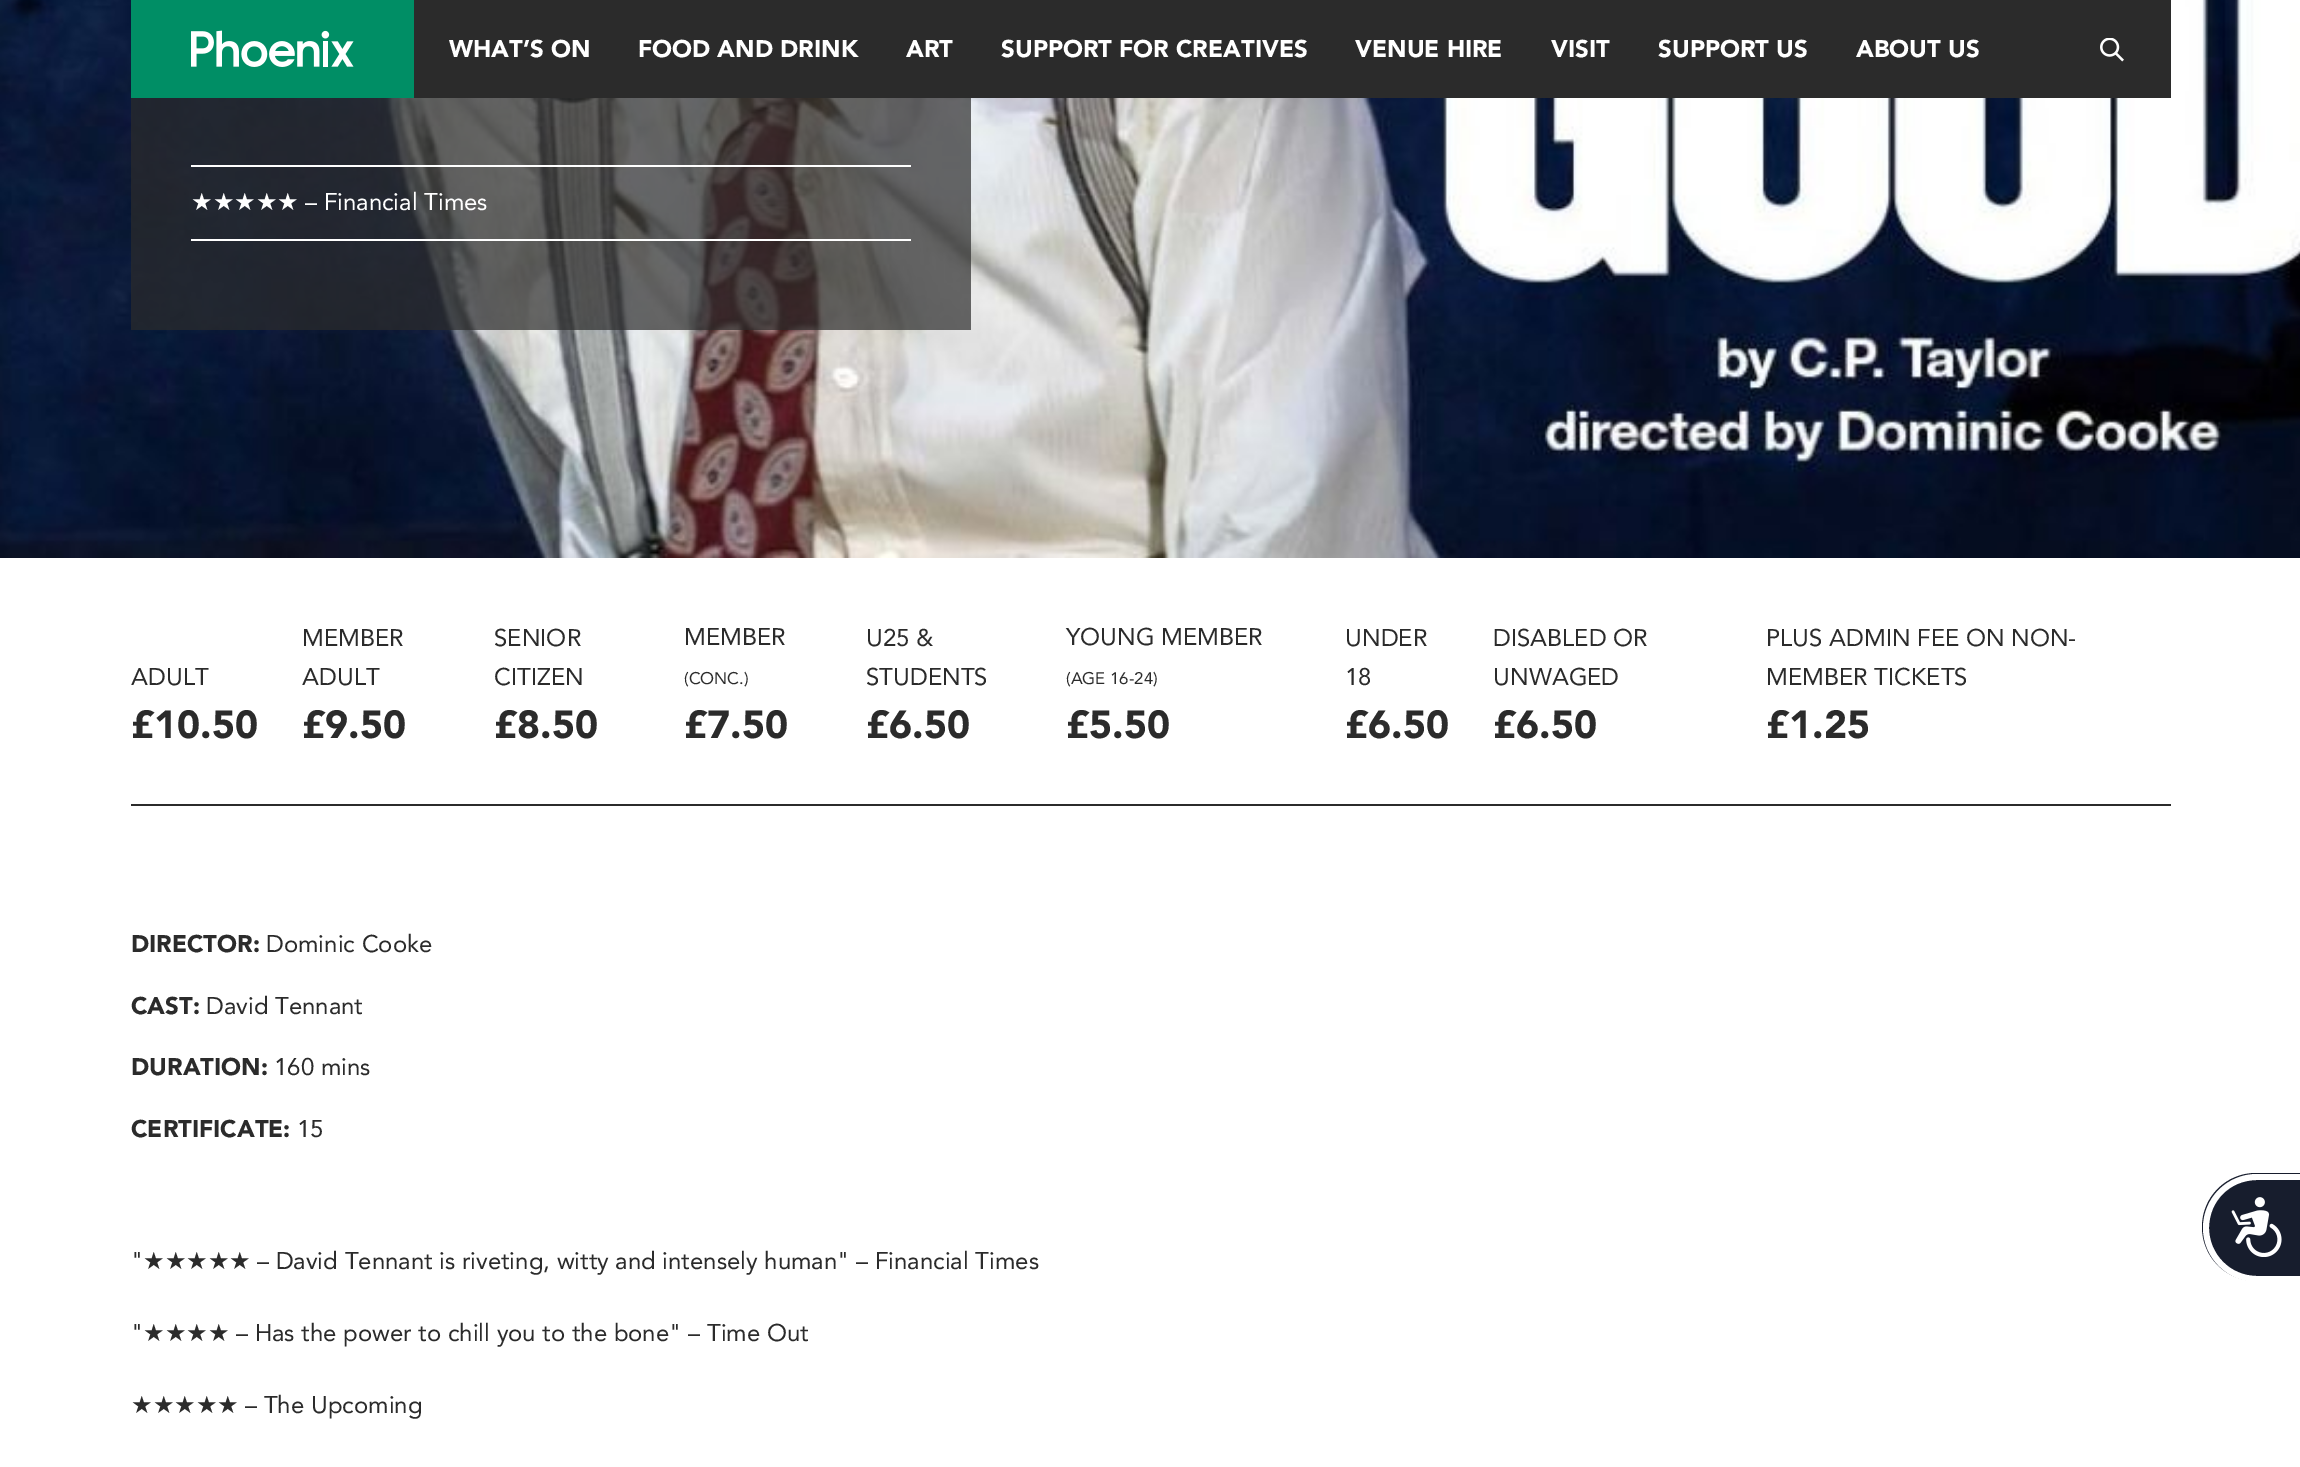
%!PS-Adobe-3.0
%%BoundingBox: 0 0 2300 1467
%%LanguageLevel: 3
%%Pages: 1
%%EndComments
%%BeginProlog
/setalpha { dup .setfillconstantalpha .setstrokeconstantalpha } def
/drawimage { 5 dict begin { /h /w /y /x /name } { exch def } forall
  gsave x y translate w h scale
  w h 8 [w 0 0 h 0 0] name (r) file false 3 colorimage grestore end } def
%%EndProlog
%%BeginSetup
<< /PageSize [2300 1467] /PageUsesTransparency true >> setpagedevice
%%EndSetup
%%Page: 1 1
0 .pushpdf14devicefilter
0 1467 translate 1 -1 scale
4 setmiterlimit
1 setgray
0 0 2300 1467 rectfill
(images/3.raw) 0 0 2300 558 drawimage
0.169 setgray
414 0 1757 98 rectfill
0 0.557 0.396 setrgbcolor
131 0 283 98 rectfill
(images/1.raw) 191 30 163 37 drawimage
(images/2.raw) 2100 38 24 24 drawimage
0.7 setalpha
0.169 setgray
131 98 840 232 rectfill
1 setalpha
1 setgray
191 165 720 2 rectfill
191 239 720 2 rectfill
0.169 setgray
131 804 2040 2 rectfill
0.09 0.114 0.176 setrgbcolor
newpath 2256 1173 moveto 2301 1173 lineto 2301 1281 lineto 2256 1281 lineto 2226 1281 2202 1257 2202 1227 curveto 2202 1197 2226 1173 2256 1173 curveto closepath fill
1 setgray
newpath 2257 1174 moveto 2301 1174 lineto 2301 1282 lineto 2257 1282 lineto 2227 1282 2203 1257 2203 1228 curveto 2203 1198 2227 1174 2257 1174 curveto closepath 2257 1180 moveto 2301 1180 lineto 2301 1276 lineto 2257 1276 lineto 2230 1276 2209 1254 2209 1228 curveto 2209 1201 2230 1180 2257 1180 curveto closepath eofill
(images/4.raw) 2231 1197 51 60 drawimage
/Avenir-Black [24 0 0 -24 0 0] selectfont
449 57 moveto (WHAT’S ON) show
638 57 moveto (FOOD AND DRINK) show
906 57 moveto (ART) show
1001 57 moveto (SUPPORT FOR CREATIVES) show
1355 57 moveto (VENUE HIRE) show
1551 57 moveto (VISIT) show
1658 57 moveto (SUPPORT US) show
1856 57 moveto (ABOUT US) show
/DejaVuSans-Regular [24 0 0 -24 0 0] selectfont
191 210 moveto (★★★★★) show
/Avenir-Regular [24 0 0 -24 0 0] selectfont
305 210 moveto (– Financial Times) show
0.169 setgray
131 685 moveto (ADULT) show
/Avenir-Black [39 0 0 -39 0 0] selectfont
131 738 moveto (£10.50) show
/Avenir-Regular [24 0 0 -24 0 0] selectfont
302 646 moveto (MEMBER) show
302 685 moveto (ADULT) show
/Avenir-Black [39 0 0 -39 0 0] selectfont
302 738 moveto (£9.50) show
/Avenir-Regular [24 0 0 -24 0 0] selectfont
494 646 moveto (SENIOR) show
494 685 moveto (CITIZEN) show
/Avenir-Black [39 0 0 -39 0 0] selectfont
494 738 moveto (£8.50) show
/Avenir-Regular [24 0 0 -24 0 0] selectfont
684 645 moveto (MEMBER) show
/Avenir-Regular [16.75 0 0 -16.75 0 0] selectfont
684 684 moveto (\(CONC.\)) show
/Avenir-Black [39 0 0 -39 0 0] selectfont
684 738 moveto (£7.50) show
/Avenir-Regular [24 0 0 -24 0 0] selectfont
866 646 moveto (U25 &) show
866 685 moveto (STUDENTS) show
/Avenir-Black [39 0 0 -39 0 0] selectfont
866 738 moveto (£6.50) show
/Avenir-Regular [24 0 0 -24 0 0] selectfont
1066 645 moveto (YOUNG MEMBER) show
/Avenir-Regular [16.75 0 0 -16.75 0 0] selectfont
1066 684 moveto (\(AGE 16-24\)) show
/Avenir-Black [39 0 0 -39 0 0] selectfont
1066 738 moveto (£5.50) show
/Avenir-Regular [24 0 0 -24 0 0] selectfont
1345 646 moveto (UNDER) show
1345 685 moveto (18) show
/Avenir-Black [39 0 0 -39 0 0] selectfont
1345 738 moveto (£6.50) show
/Avenir-Regular [24 0 0 -24 0 0] selectfont
1493 646 moveto (DISABLED OR) show
1493 685 moveto (UNWAGED) show
/Avenir-Black [39 0 0 -39 0 0] selectfont
1493 738 moveto (£6.50) show
/Avenir-Regular [24 0 0 -24 0 0] selectfont
1766 646 moveto (PLUS ADMIN FEE ON NON-) show
1766 685 moveto (MEMBER TICKETS) show
/Avenir-Black [39 0 0 -39 0 0] selectfont
1766 738 moveto (£1.25) show
/Avenir-Black [24 0 0 -24 0 0] selectfont
131 952 moveto (DIRECTOR:) show
/Avenir-Regular [24 0 0 -24 0 0] selectfont
266 952 moveto (Dominic Cooke) show
/Avenir-Black [24 0 0 -24 0 0] selectfont
131 1014 moveto (CAST:) show
/Avenir-Regular [24 0 0 -24 0 0] selectfont
206 1014 moveto (David Tennant) show
/Avenir-Black [24 0 0 -24 0 0] selectfont
131 1075 moveto (DURATION:) show
/Avenir-Regular [24 0 0 -24 0 0] selectfont
274 1075 moveto (160 mins) show
/Avenir-Black [24 0 0 -24 0 0] selectfont
131 1137 moveto (CERTIFICATE:) show
/Avenir-Regular [24 0 0 -24 0 0] selectfont
297 1137 moveto (15) show
131 1269 moveto (") show
/DejaVuSans-Regular [24 0 0 -24 0 0] selectfont
143 1269 moveto (★★★★★) show
/Avenir-Regular [24 0 0 -24 0 0] selectfont
257 1269 moveto (– David Tennant is riveting, witty and intensely human" – Financial Times) show
131 1341 moveto (") show
/DejaVuSans-Regular [24 0 0 -24 0 0] selectfont
143 1341 moveto (★★★★) show
/Avenir-Regular [24 0 0 -24 0 0] selectfont
236 1341 moveto (– Has the power to chill you to the bone" – Time Out) show
/DejaVuSans-Regular [24 0 0 -24 0 0] selectfont
131 1413 moveto (★★★★★) show
/Avenir-Regular [24 0 0 -24 0 0] selectfont
245 1413 moveto (– The Upcoming) show
.poppdf14devicefilter showpage
%%EOF
